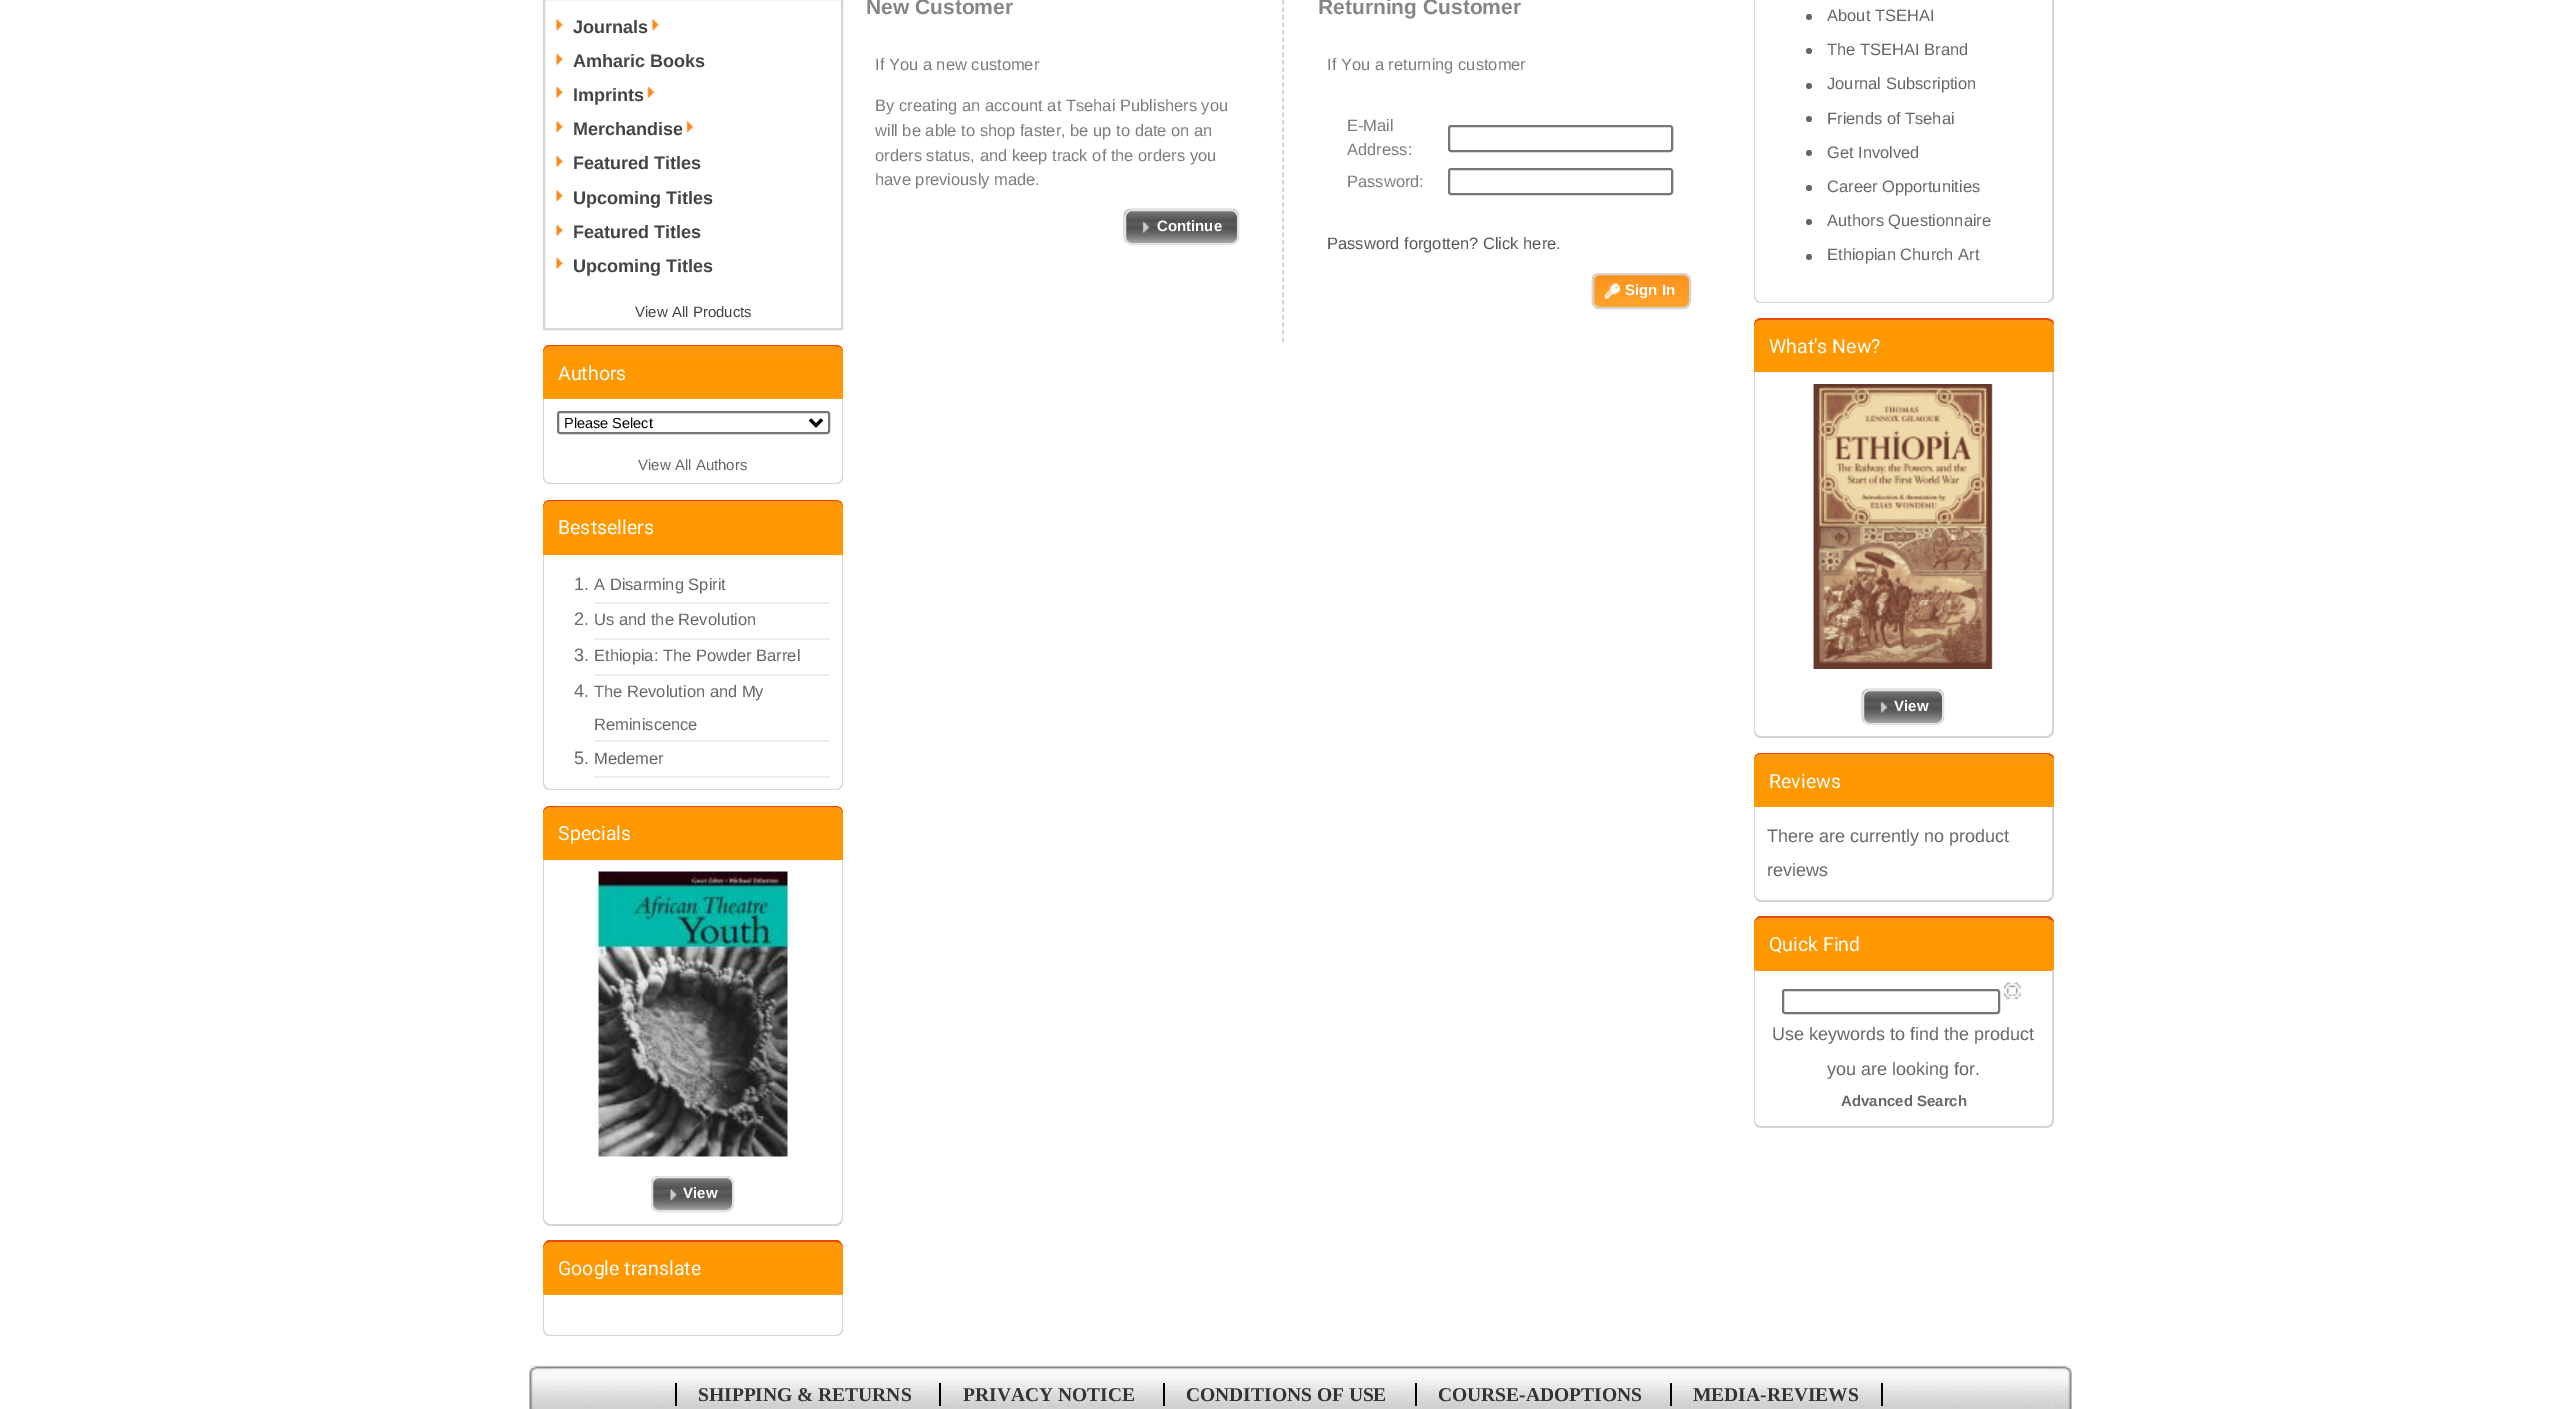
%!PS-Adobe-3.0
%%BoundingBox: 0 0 2576 1409
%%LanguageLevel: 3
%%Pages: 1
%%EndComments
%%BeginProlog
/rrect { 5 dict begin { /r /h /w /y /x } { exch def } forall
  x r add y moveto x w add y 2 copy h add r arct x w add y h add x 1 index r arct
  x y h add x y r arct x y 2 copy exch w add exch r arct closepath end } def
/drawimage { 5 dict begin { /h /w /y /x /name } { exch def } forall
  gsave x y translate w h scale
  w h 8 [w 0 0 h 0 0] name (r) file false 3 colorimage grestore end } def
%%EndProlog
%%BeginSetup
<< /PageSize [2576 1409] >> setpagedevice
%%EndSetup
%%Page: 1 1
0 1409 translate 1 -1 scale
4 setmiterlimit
1 setgray
0 0 2576 1409 rectfill
0.835 setgray
2 setlinewidth
544 -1 298 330 rectstroke
(images/1.raw) 556 19 7 12 drawimage
(images/1.raw) 652 19 7 12 drawimage
(images/2.raw) 556 53 7 12 drawimage
(images/2.raw) 556 86 7 12 drawimage
(images/1.raw) 556 121 7 12 drawimage
(images/2.raw) 556 155 7 12 drawimage
(images/1.raw) 556 190 7 12 drawimage
(images/2.raw) 556 224 7 12 drawimage
(images/2.raw) 556 257 7 12 drawimage
gsave
newpath 551 345 moveto 835 345 lineto 839.5 345 843 348.5 843 353 curveto 843 414 lineto 543 414 lineto 543 353 lineto 543 348.5 546.5 345 551 345 curveto closepath clip newpath
gsave newpath 543 345 moveto 843 345 lineto 843 347 lineto 543 347 lineto closepath clip newpath
<< /ShadingType 2 /ColorSpace /DeviceRGB /Coords [693 281 693 347] /Extend [true true] /Function << /FunctionType 3 /Domain [0 1] /Functions [<< /FunctionType 2 /Domain [0 1] /C0 [1 0.596 0.067] /C1 [1 0.596 0.004] /N 1 >> << /FunctionType 2 /Domain [0 1] /C0 [1 0.596 0.004] /C1 [1 0.596 0.004] /N 1 >> << /FunctionType 2 /Domain [0 1] /C0 [1 0.596 0.004] /C1 [1 0.608 0.098] /N 1 >>] /Bounds [0.17 0.82] /Encode [0 1 0 1 0 1] >> >> shfill grestore
gsave newpath 543 347 moveto 843 347 lineto 843 399 lineto 543 399 lineto closepath clip newpath
<< /ShadingType 2 /ColorSpace /DeviceRGB /Coords [693 347 693 413] /Extend [true true] /Function << /FunctionType 3 /Domain [0 1] /Functions [<< /FunctionType 2 /Domain [0 1] /C0 [1 0.596 0.067] /C1 [1 0.596 0.004] /N 1 >> << /FunctionType 2 /Domain [0 1] /C0 [1 0.596 0.004] /C1 [1 0.596 0.004] /N 1 >> << /FunctionType 2 /Domain [0 1] /C0 [1 0.596 0.004] /C1 [1 0.608 0.098] /N 1 >>] /Bounds [0.17 0.82] /Encode [0 1 0 1 0 1] >> >> shfill grestore
grestore
0.918 0.286 0.004 setrgbcolor
newpath 550 345 moveto 546 345 543 348 543 352 curveto 543 349 546 346 550 346 curveto 836 346 lineto 840 346 843 349 843 352 curveto 843 348 840 345 836 345 curveto closepath fill
1 setgray
newpath 543 399 moveto 843 399 lineto 843 477 lineto 843 481.5 839.5 485 835 485 curveto 551 485 lineto 546.5 485 543 481.5 543 477 curveto closepath fill
0.835 setgray
newpath 543 399 moveto 843 399 lineto 843 477 lineto 843 481 840 484 836 484 curveto 550 484 lineto 546 484 543 481 543 477 curveto closepath 544 399 moveto 842 399 lineto 842 477 lineto 842 480 839 483 836 483 curveto 550 483 lineto 547 483 544 480 544 477 curveto closepath eofill
0.463 setgray
558 412 271 21 2 rrect stroke
0 setgray
3 setlinewidth
newpath 810 419.5 moveto 816 425.5 lineto 822 419.5 lineto stroke
gsave
newpath 551 500 moveto 835 500 lineto 839.5 500 843 503.5 843 508 curveto 843 569 lineto 543 569 lineto 543 508 lineto 543 503.5 546.5 500 551 500 curveto closepath clip newpath
gsave newpath 543 501 moveto 843 501 lineto 843 555 lineto 543 555 lineto closepath clip newpath
<< /ShadingType 2 /ColorSpace /DeviceRGB /Coords [693 501 693 567] /Extend [true true] /Function << /FunctionType 3 /Domain [0 1] /Functions [<< /FunctionType 2 /Domain [0 1] /C0 [1 0.596 0.067] /C1 [1 0.596 0.004] /N 1 >> << /FunctionType 2 /Domain [0 1] /C0 [1 0.596 0.004] /C1 [1 0.596 0.004] /N 1 >> << /FunctionType 2 /Domain [0 1] /C0 [1 0.596 0.004] /C1 [1 0.608 0.098] /N 1 >>] /Bounds [0.17 0.82] /Encode [0 1 0 1 0 1] >> >> shfill grestore
grestore
0.918 0.286 0.004 setrgbcolor
newpath 550 500 moveto 546 500 543 503 543 507 curveto 543 504 546 501 550 501 curveto 836 501 lineto 840 501 843 504 843 507 curveto 843 503 840 500 836 500 curveto closepath fill
1 setgray
newpath 543 555 moveto 843 555 lineto 843 783 lineto 843 787.5 839.5 791 835 791 curveto 551 791 lineto 546.5 791 543 787.5 543 783 curveto closepath fill
0.835 setgray
newpath 543 555 moveto 843 555 lineto 843 783 lineto 843 787 840 790 836 790 curveto 550 790 lineto 546 790 543 787 543 783 curveto closepath 544 555 moveto 842 555 lineto 842 783 lineto 842 786 839 789 836 789 curveto 550 789 lineto 547 789 544 786 544 783 curveto closepath eofill
0.937 0.933 0.933 setrgbcolor
594 602 236 2 rectfill
594 638 236 2 rectfill
594 674 236 2 rectfill
594 740 236 2 rectfill
594 776 236 2 rectfill
gsave
newpath 551 806 moveto 835 806 lineto 839.5 806 843 809.5 843 814 curveto 843 875 lineto 543 875 lineto 543 814 lineto 543 809.5 546.5 806 551 806 curveto closepath clip newpath
gsave newpath 543 807 moveto 843 807 lineto 843 860 lineto 543 860 lineto closepath clip newpath
<< /ShadingType 2 /ColorSpace /DeviceRGB /Coords [693 807 693 873] /Extend [true true] /Function << /FunctionType 3 /Domain [0 1] /Functions [<< /FunctionType 2 /Domain [0 1] /C0 [1 0.596 0.067] /C1 [1 0.596 0.004] /N 1 >> << /FunctionType 2 /Domain [0 1] /C0 [1 0.596 0.004] /C1 [1 0.596 0.004] /N 1 >> << /FunctionType 2 /Domain [0 1] /C0 [1 0.596 0.004] /C1 [1 0.608 0.098] /N 1 >>] /Bounds [0.17 0.82] /Encode [0 1 0 1 0 1] >> >> shfill grestore
grestore
0.918 0.286 0.004 setrgbcolor
newpath 550 806 moveto 546 806 543 809 543 813 curveto 543 810 546 807 550 807 curveto 836 807 lineto 840 807 843 810 843 813 curveto 843 809 840 806 836 806 curveto closepath fill
1 setgray
newpath 543 860 moveto 843 860 lineto 843 1218 lineto 843 1222.5 839.5 1226 835 1226 curveto 551 1226 lineto 546.5 1226 543 1222.5 543 1218 curveto closepath fill
0.835 setgray
newpath 543 860 moveto 843 860 lineto 843 1218 lineto 843 1222 840 1226 836 1226 curveto 550 1226 lineto 546 1226 543 1222 543 1218 curveto closepath 544 860 moveto 842 860 lineto 842 1218 lineto 842 1221 839 1224 836 1224 curveto 550 1224 lineto 547 1224 544 1221 544 1218 curveto closepath eofill
(images/5.raw) 595 871 195 286 drawimage
(images/6.raw) 651 1176 83 35 drawimage
0.886 setgray
2 setlinewidth
652 1177 81 34 7 rrect stroke
(images/7.raw) 670 1189 7 12 drawimage
gsave
newpath 551 1241 moveto 835 1241 lineto 839.5 1241 843 1244.5 843 1249 curveto 843 1310 lineto 543 1310 lineto 543 1249 lineto 543 1244.5 546.5 1241 551 1241 curveto closepath clip newpath
gsave newpath 543 1242 moveto 843 1242 lineto 843 1295 lineto 543 1295 lineto closepath clip newpath
<< /ShadingType 2 /ColorSpace /DeviceRGB /Coords [693 1242 693 1308] /Extend [true true] /Function << /FunctionType 3 /Domain [0 1] /Functions [<< /FunctionType 2 /Domain [0 1] /C0 [1 0.596 0.067] /C1 [1 0.596 0.004] /N 1 >> << /FunctionType 2 /Domain [0 1] /C0 [1 0.596 0.004] /C1 [1 0.596 0.004] /N 1 >> << /FunctionType 2 /Domain [0 1] /C0 [1 0.596 0.004] /C1 [1 0.608 0.098] /N 1 >>] /Bounds [0.17 0.82] /Encode [0 1 0 1 0 1] >> >> shfill grestore
grestore
0.918 0.286 0.004 setrgbcolor
newpath 550 1242 moveto 546 1242 543 1245 543 1248 curveto 543 1245 545 1242 548 1240 curveto 838 1240 lineto 841 1242 843 1245 843 1248 curveto 843 1245 840 1242 836 1242 curveto closepath fill
1 setgray
newpath 543 1295 moveto 843 1295 lineto 843 1329 lineto 843 1333.5 839.5 1337 835 1337 curveto 551 1337 lineto 546.5 1337 543 1333.5 543 1329 curveto closepath fill
0.835 setgray
newpath 543 1294 moveto 843 1294 lineto 843 1329 lineto 843 1333 840 1336 836 1336 curveto 550 1336 lineto 546 1336 543 1333 543 1329 curveto closepath 544 1294 moveto 842 1294 lineto 842 1329 lineto 842 1332 839 1335 836 1335 curveto 550 1335 lineto 547 1335 544 1332 544 1329 curveto closepath eofill
(images/8.raw) 1123 208 116 35 drawimage
0.886 setgray
1125 210 113 34 7 rrect stroke
(images/9.raw) 1142 221 8 12 drawimage
0.8 setgray
1.5 setlinewidth
[4.5 3] 0 setdash
newpath 1283 -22.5 moveto 1283 342 lineto stroke
0.463 setgray
2 setlinewidth
[] 0 setdash
1449 126 223 25 2 rrect stroke
1449 169 223 25 2 rrect stroke
(images/10.raw) 1591 273 100 36 drawimage
0.835 setgray
1593 274 97 34 7 rrect stroke
(images/11.raw) 1604 283 17 16 drawimage
newpath 1754 -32 moveto 2054 -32 lineto 2054 296 lineto 2054 300 2050 303 2046 303 curveto 1761 303 lineto 1757 303 1754 300 1754 296 curveto closepath 1755 -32 moveto 2052 -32 lineto 2052 296 lineto 2052 299 2049 302 2046 302 curveto 1761 302 lineto 1758 302 1755 299 1755 296 curveto closepath eofill
0.404 setgray
newpath 1809 17 3 0 360 arc closepath fill
newpath 1809 51 3 0 360 arc closepath fill
newpath 1809 86 3 0 360 arc closepath fill
newpath 1809 119 3 0 360 arc closepath fill
newpath 1809 153 3 0 360 arc closepath fill
newpath 1809 188 3 0 360 arc closepath fill
newpath 1809 222 3 0 360 arc closepath fill
newpath 1809 257 3 0 360 arc closepath fill
gsave
newpath 1762 318 moveto 2046 318 lineto 2050.5 318 2054 321.5 2054 326 curveto 2054 387 lineto 1754 387 lineto 1754 326 lineto 1754 321.5 1757.5 318 1762 318 curveto closepath clip newpath
gsave newpath 1754 320 moveto 2054 320 lineto 2054 372 lineto 1754 372 lineto closepath clip newpath
<< /ShadingType 2 /ColorSpace /DeviceRGB /Coords [1904 320 1904 386] /Extend [true true] /Function << /FunctionType 3 /Domain [0 1] /Functions [<< /FunctionType 2 /Domain [0 1] /C0 [1 0.596 0.067] /C1 [1 0.596 0.004] /N 1 >> << /FunctionType 2 /Domain [0 1] /C0 [1 0.596 0.004] /C1 [1 0.596 0.004] /N 1 >> << /FunctionType 2 /Domain [0 1] /C0 [1 0.596 0.004] /C1 [1 0.608 0.098] /N 1 >>] /Bounds [0.17 0.82] /Encode [0 1 0 1 0 1] >> >> shfill grestore
grestore
0.918 0.286 0.004 setrgbcolor
newpath 1761 318 moveto 2046 318 lineto 2049 318 2054 320 2054 324 curveto 2052 321 2049 320 2046 320 curveto 1761 320 lineto 1757 320 1754 322 1754 326 curveto 1754 321 1757 318 1761 318 curveto closepath fill
1 setgray
newpath 1754 372 moveto 2054 372 lineto 2054 730 lineto 2054 734.5 2050.5 738 2046 738 curveto 1762 738 lineto 1757.5 738 1754 734.5 1754 730 curveto closepath fill
0.835 setgray
newpath 1754 372 moveto 2054 372 lineto 2054 730 lineto 2054 735 2050 738 2046 738 curveto 1761 738 lineto 1757 738 1754 735 1754 730 curveto closepath 1755 372 moveto 2052 372 lineto 2052 730 lineto 2052 734 2049 736 2046 736 curveto 1761 736 lineto 1758 736 1755 734 1755 730 curveto closepath eofill
(images/12.raw) 1813 384 180 285 drawimage
(images/13.raw) 1861 688 83 35 drawimage
0.886 setgray
1863 690 80 34 7 rrect stroke
(images/14.raw) 1880 701 8 12 drawimage
gsave
newpath 1762 753 moveto 2046 753 lineto 2050.5 753 2054 756.5 2054 761 curveto 2054 822 lineto 1754 822 lineto 1754 761 lineto 1754 756.5 1757.5 753 1762 753 curveto closepath clip newpath
gsave newpath 1754 753 moveto 2054 753 lineto 2054 755 lineto 1754 755 lineto closepath clip newpath
<< /ShadingType 2 /ColorSpace /DeviceRGB /Coords [1904 689 1904 755] /Extend [true true] /Function << /FunctionType 3 /Domain [0 1] /Functions [<< /FunctionType 2 /Domain [0 1] /C0 [1 0.596 0.067] /C1 [1 0.596 0.004] /N 1 >> << /FunctionType 2 /Domain [0 1] /C0 [1 0.596 0.004] /C1 [1 0.596 0.004] /N 1 >> << /FunctionType 2 /Domain [0 1] /C0 [1 0.596 0.004] /C1 [1 0.608 0.098] /N 1 >>] /Bounds [0.17 0.82] /Encode [0 1 0 1 0 1] >> >> shfill grestore
gsave newpath 1754 755 moveto 2054 755 lineto 2054 807 lineto 1754 807 lineto closepath clip newpath
<< /ShadingType 2 /ColorSpace /DeviceRGB /Coords [1904 755 1904 821] /Extend [true true] /Function << /FunctionType 3 /Domain [0 1] /Functions [<< /FunctionType 2 /Domain [0 1] /C0 [1 0.596 0.067] /C1 [1 0.596 0.004] /N 1 >> << /FunctionType 2 /Domain [0 1] /C0 [1 0.596 0.004] /C1 [1 0.596 0.004] /N 1 >> << /FunctionType 2 /Domain [0 1] /C0 [1 0.596 0.004] /C1 [1 0.608 0.098] /N 1 >>] /Bounds [0.17 0.82] /Encode [0 1 0 1 0 1] >> >> shfill grestore
grestore
0.918 0.286 0.004 setrgbcolor
newpath 1761 753 moveto 2046 753 lineto 2049 753 2054 755 2054 758 curveto 2052 756 2049 754 2046 754 curveto 1761 754 lineto 1757 754 1754 757 1754 760 curveto 1754 756 1757 753 1761 753 curveto closepath fill
1 setgray
newpath 1754 807 moveto 2054 807 lineto 2054 894 lineto 2054 898.5 2050.5 902 2046 902 curveto 1762 902 lineto 1757.5 902 1754 898.5 1754 894 curveto closepath fill
0.835 setgray
newpath 1754 807 moveto 2054 807 lineto 2054 894 lineto 2054 898 2050 902 2046 902 curveto 1761 902 lineto 1757 902 1754 898 1754 894 curveto closepath 1755 807 moveto 2052 807 lineto 2052 894 lineto 2052 897 2049 900 2046 900 curveto 1761 900 lineto 1758 900 1755 897 1755 894 curveto closepath eofill
gsave
newpath 1762 917 moveto 2046 917 lineto 2050.5 917 2054 920.5 2054 925 curveto 2054 986 lineto 1754 986 lineto 1754 925 lineto 1754 920.5 1757.5 917 1762 917 curveto closepath clip newpath
gsave newpath 1754 918 moveto 2054 918 lineto 2054 971 lineto 1754 971 lineto closepath clip newpath
<< /ShadingType 2 /ColorSpace /DeviceRGB /Coords [1904 918 1904 984] /Extend [true true] /Function << /FunctionType 3 /Domain [0 1] /Functions [<< /FunctionType 2 /Domain [0 1] /C0 [1 0.596 0.067] /C1 [1 0.596 0.004] /N 1 >> << /FunctionType 2 /Domain [0 1] /C0 [1 0.596 0.004] /C1 [1 0.596 0.004] /N 1 >> << /FunctionType 2 /Domain [0 1] /C0 [1 0.596 0.004] /C1 [1 0.608 0.098] /N 1 >>] /Bounds [0.17 0.82] /Encode [0 1 0 1 0 1] >> >> shfill grestore
grestore
0.918 0.286 0.004 setrgbcolor
newpath 1761 918 moveto 1757 918 1754 921 1754 924 curveto 1754 921 1756 918 1759 916 curveto 2049 916 lineto 2051 917 2053 919 2054 921 curveto 2054 922 lineto 2052 920 2049 918 2046 918 curveto closepath fill
1 setgray
newpath 1754 971 moveto 2054 971 lineto 2054 1120 lineto 2054 1124.5 2050.5 1128 2046 1128 curveto 1762 1128 lineto 1757.5 1128 1754 1124.5 1754 1120 curveto closepath fill
0.835 setgray
newpath 1754 970 moveto 2054 970 lineto 2054 1120 lineto 2054 1125 2050 1128 2046 1128 curveto 1761 1128 lineto 1757 1128 1754 1125 1754 1120 curveto closepath 1755 970 moveto 2052 970 lineto 2052 1120 lineto 2052 1124 2049 1126 2046 1126 curveto 1761 1126 lineto 1758 1126 1755 1124 1755 1120 curveto closepath eofill
0.463 setgray
1783 990 216 23 2 rrect stroke
(images/15.raw) 2004 982 17 18 drawimage
(images/16.raw) 529 1365 1543 44 drawimage
0 setgray
675 1383 2 23 rectfill
939 1383 2 23 rectfill
1163 1383 2 23 rectfill
1415 1383 2 23 rectfill
1670 1383 2 23 rectfill
1881 1383 2 23 rectfill
/LiberationSans-Bold [18 0 0 -18 0 0] selectfont
0.267 setgray
573 33 moveto (Journals) show
573 67 moveto (Amharic Books) show
573 101 moveto (Imprints) show
(images/3.raw) 643 86 12 13 drawimage
573 135 moveto (Merchandise) show
(images/4.raw) 682 121 12 12 drawimage
573 169 moveto (Featured Titles) show
573 204 moveto (Upcoming Titles) show
573 238 moveto (Featured Titles) show
573 272 moveto (Upcoming Titles) show
/LiberationSans-Regular [15 0 0 -15 0 0] selectfont
635 317 moveto (View All Products) show
/Roboto-Regular [19.5 0 0 -19.5 0 0] selectfont
1 setgray
558 380 moveto (Authors) show
/LiberationSans-Regular [14.5 0 0 -14.5 0 0] selectfont
0 setgray
564 428 moveto (Please Select) show
/LiberationSans-Regular [15 0 0 -15 0 0] selectfont
0.404 setgray
638 470 moveto (View All Authors) show
/Roboto-Regular [19.5 0 0 -19.5 0 0] selectfont
1 setgray
558 534 moveto (Bestsellers) show
/LiberationSans-Regular [18 0 0 -18 0 0] selectfont
0.404 setgray
574 590 moveto (1.) show
/LiberationSans-Regular [16.5 0 0 -16.5 0 0] selectfont
594 590 moveto (A Disarming Spirit) show
/LiberationSans-Regular [18 0 0 -18 0 0] selectfont
574 625 moveto (2.) show
/LiberationSans-Regular [16.5 0 0 -16.5 0 0] selectfont
594 625 moveto (Us and the Revolution) show
/LiberationSans-Regular [18 0 0 -18 0 0] selectfont
574 661 moveto (3.) show
/LiberationSans-Regular [16.5 0 0 -16.5 0 0] selectfont
594 661 moveto (Ethiopia: The Powder Barrel) show
/LiberationSans-Regular [18 0 0 -18 0 0] selectfont
574 697 moveto (4.) show
/LiberationSans-Regular [16.5 0 0 -16.5 0 0] selectfont
594 697 moveto (The Revolution and My) show
594 730 moveto (Reminiscence) show
/LiberationSans-Regular [18 0 0 -18 0 0] selectfont
574 764 moveto (5.) show
/LiberationSans-Regular [16.5 0 0 -16.5 0 0] selectfont
594 764 moveto (Medemer) show
/Roboto-Regular [19.5 0 0 -19.5 0 0] selectfont
1 setgray
558 840 moveto (Specials) show
/LiberationSans-Bold [15 0 0 -15 0 0] selectfont
683 1198 moveto (View) show
/Roboto-Regular [19.5 0 0 -19.5 0 0] selectfont
558 1275 moveto (Google translate) show
/LiberationSans-Bold [21 0 0 -21 0 0] selectfont
0.522 setgray
866 14 moveto (New Customer) show
/LiberationSans-Regular [16.5 0 0 -16.5 0 0] selectfont
0.49 setgray
875 70 moveto (If You a new customer) show
875 111 moveto (By creating an account at Tsehai Publishers you) show
875 136 moveto (will be able to shop faster, be up to date on an) show
875 161 moveto (orders status, and keep track of the orders you) show
875 185 moveto (have previously made.) show
/LiberationSans-Bold [15 0 0 -15 0 0] selectfont
1 setgray
1157 231 moveto (Continue) show
/LiberationSans-Bold [21 0 0 -21 0 0] selectfont
0.522 setgray
1318 14 moveto (Returning Customer) show
/LiberationSans-Regular [16.5 0 0 -16.5 0 0] selectfont
0.49 setgray
1327 70 moveto (If You a returning customer) show
1347 131 moveto (E-Mail) show
1347 155 moveto (Address:) show
1347 187 moveto (Password:) show
0.341 setgray
1327 249 moveto (Password forgotten? Click here.) show
/LiberationSans-Bold [15 0 0 -15 0 0] selectfont
1 setgray
1625 295 moveto (Sign In) show
/LiberationSans-Regular [16.5 0 0 -16.5 0 0] selectfont
0.404 setgray
1827 21 moveto (About TSEHAI) show
1827 55 moveto (The TSEHAI Brand) show
1827 89 moveto (Journal Subscription) show
1827 124 moveto (Friends of Tsehai) show
1827 158 moveto (Get Involved) show
1827 192 moveto (Career Opportunities) show
1827 226 moveto (Authors Questionnaire) show
1827 260 moveto (Ethiopian Church Art) show
/Roboto-Regular [19.5 0 0 -19.5 0 0] selectfont
1 setgray
1769 353 moveto (What's New?) show
/LiberationSans-Bold [15 0 0 -15 0 0] selectfont
1894 711 moveto (View) show
/Roboto-Regular [19.5 0 0 -19.5 0 0] selectfont
1769 788 moveto (Reviews) show
/LiberationSans-Regular [18 0 0 -18 0 0] selectfont
0.404 setgray
1767 842 moveto (There are currently no product) show
1767 876 moveto (reviews) show
/Roboto-Regular [19.5 0 0 -19.5 0 0] selectfont
1 setgray
1769 951 moveto (Quick Find) show
/LiberationSans-Regular [18 0 0 -18 0 0] selectfont
0.404 setgray
1772 1040 moveto (Use keywords to find the product) show
1827 1075 moveto (you are looking for.) show
/LiberationSans-Bold [15 0 0 -15 0 0] selectfont
1841 1106 moveto (Advanced Search) show
/LiberationSerif-Bold [19.5 0 0 -19.5 0 0] selectfont
0.2 0.2 0.204 setrgbcolor
698 1401 moveto (SHIPPING & RETURNS) show
963 1401 moveto (PRIVACY NOTICE) show
1186 1401 moveto (CONDITIONS OF USE) show
1438 1401 moveto (COURSE-ADOPTIONS) show
1693 1401 moveto (MEDIA-REVIEWS) show
showpage
%%EOF
